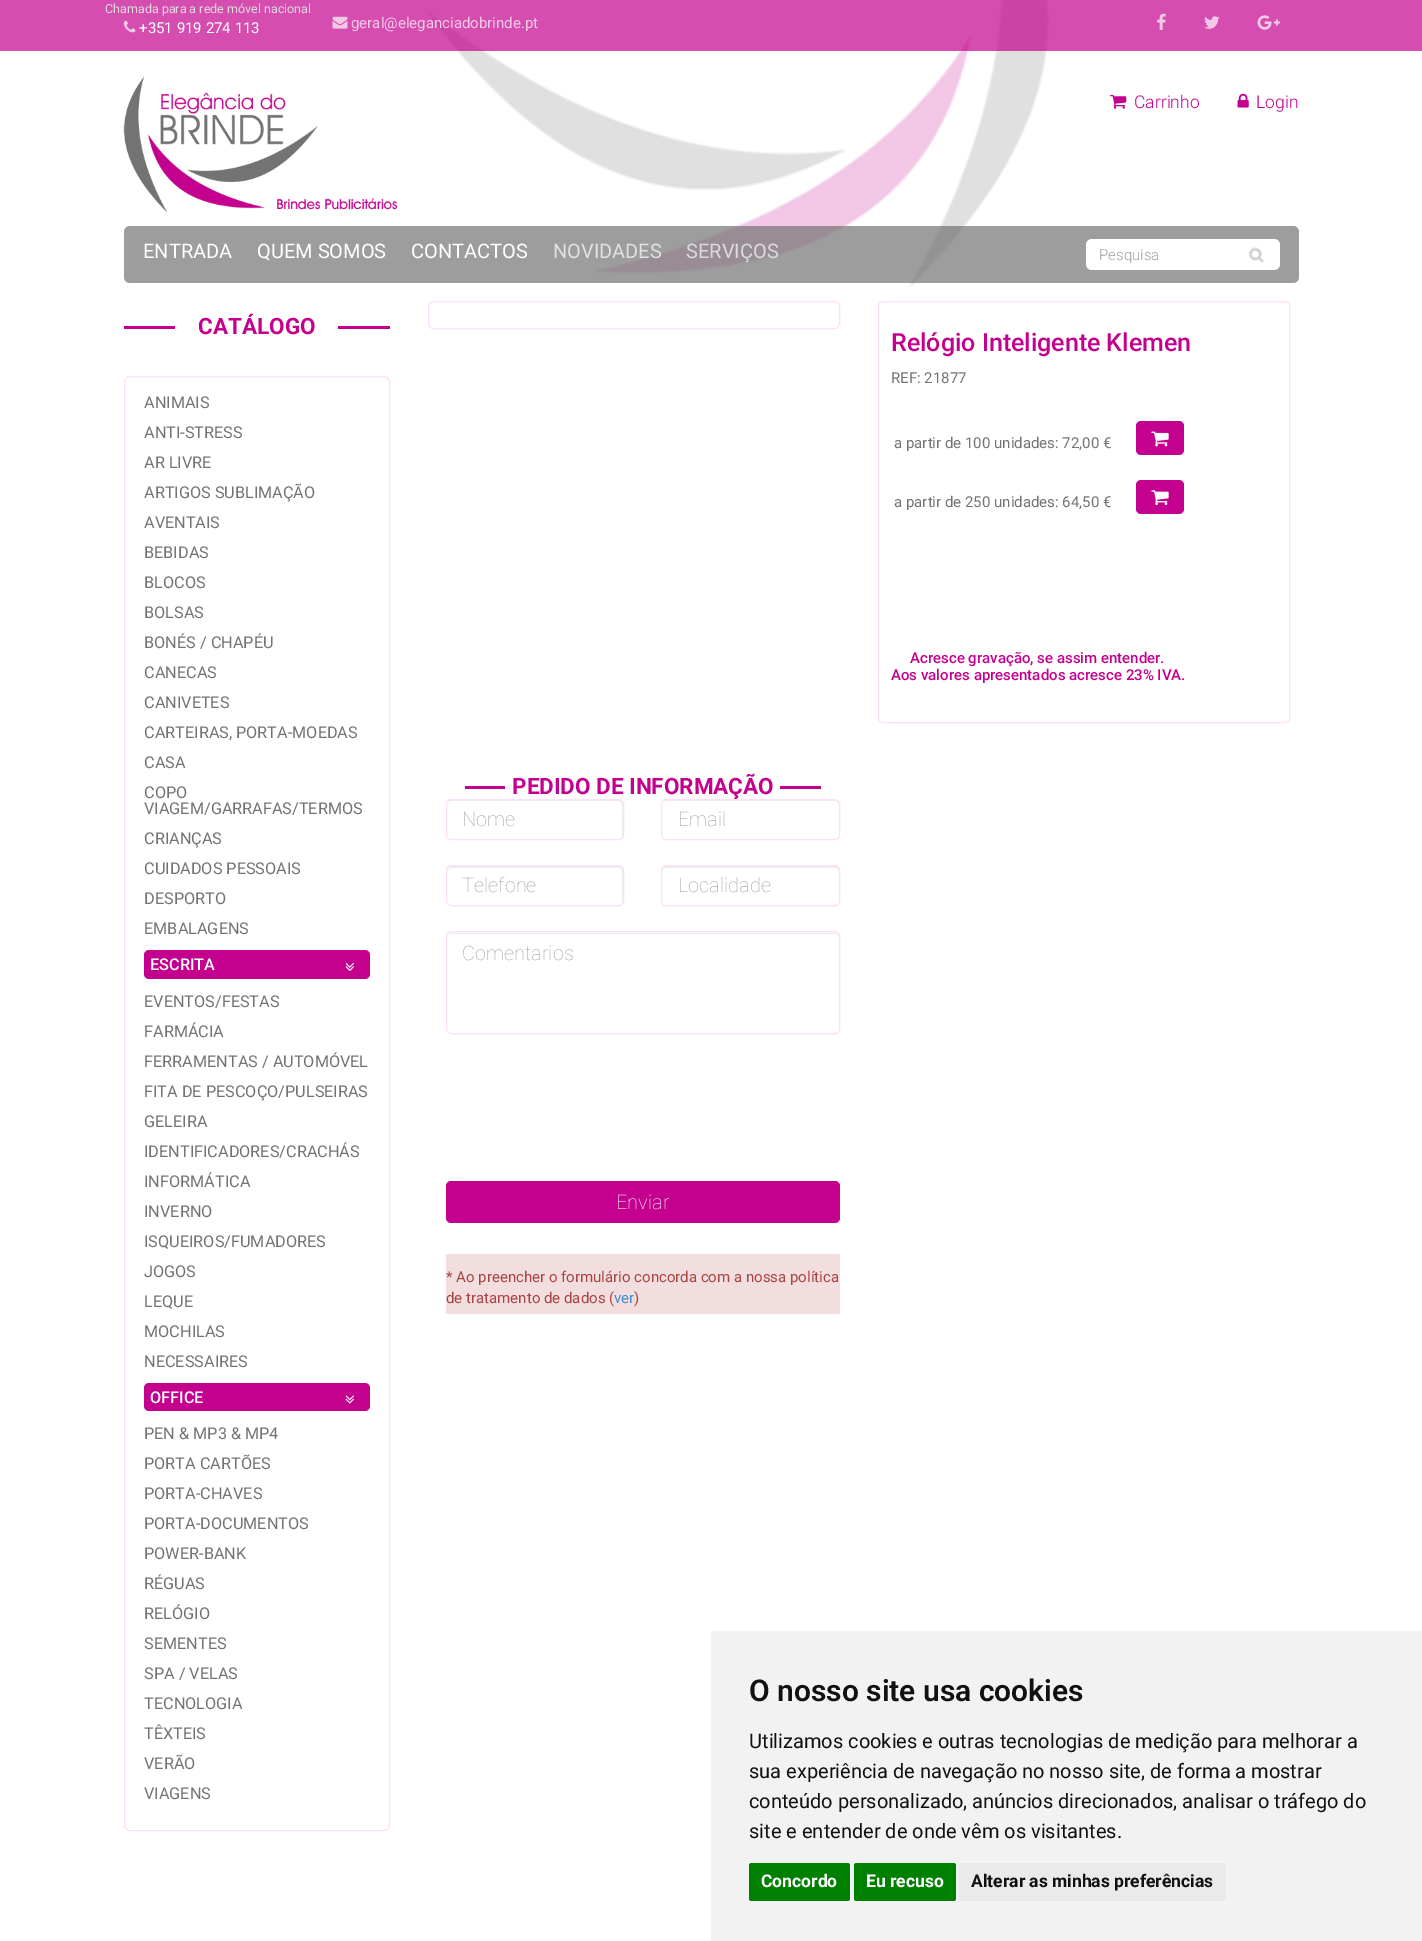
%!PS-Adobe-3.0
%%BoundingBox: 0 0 1422 1941
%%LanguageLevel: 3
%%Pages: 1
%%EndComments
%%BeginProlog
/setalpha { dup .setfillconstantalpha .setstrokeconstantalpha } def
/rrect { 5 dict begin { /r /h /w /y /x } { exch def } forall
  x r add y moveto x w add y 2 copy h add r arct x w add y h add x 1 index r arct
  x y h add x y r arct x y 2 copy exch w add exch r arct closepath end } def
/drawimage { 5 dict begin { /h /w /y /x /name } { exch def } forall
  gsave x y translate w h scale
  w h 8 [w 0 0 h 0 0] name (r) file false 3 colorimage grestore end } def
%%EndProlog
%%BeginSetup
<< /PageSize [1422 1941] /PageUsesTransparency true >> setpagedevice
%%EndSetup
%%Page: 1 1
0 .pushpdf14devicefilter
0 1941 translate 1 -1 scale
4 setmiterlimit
1 setgray
0 0 1422 1941 rectfill
(images/1.raw) 425 0 624 287 drawimage
0.7 setalpha
0.769 0.004 0.557 setrgbcolor
0 0 1422 51 rectfill
1 setalpha
(images/2.raw) 123 20 13 13 drawimage
(images/3.raw) 332 16 16 13 drawimage
(images/4.raw) 1157 13 9 17 drawimage
(images/5.raw) 1204 16 16 13 drawimage
(images/6.raw) 1257 15 23 15 drawimage
(images/7.raw) 123 77 275 136 drawimage
(images/8.raw) 1110 95 17 14 drawimage
(images/9.raw) 1237 93 12 15 drawimage
0.7 setalpha
0.451 setgray
124 226 1175 57 6 rrect fill
1 setalpha
1 setgray
1086 239 194 31 6 rrect fill
(images/10.raw) 1248 247 16 16 drawimage
0.769 0.004 0.557 setrgbcolor
124 326 266 3 rectfill
1 setgray
175 326 163 3 rectfill
1 0.875 0.969 setrgbcolor
124.5 376.5 265 1454 5.5 rrect stroke
0.769 0.004 0.557 setrgbcolor
144 950 226 29 5 rrect fill
(images/11.raw) 345 963 9 8 drawimage
144 1383 226 28 5 rrect fill
(images/12.raw) 345 1395 9 9 drawimage
1 0.875 0.969 setrgbcolor
428.5 301.5 411 27 4.5 rrect stroke
878.5 301.5 411 421 4.5 rrect stroke
0.769 0.004 0.557 setrgbcolor
1136 421 48 34 5 rrect fill
(images/13.raw) 1151 431 18 16 drawimage
1136 480 48 34 5 rrect fill
(images/14.raw) 1151 490 18 16 drawimage
465 786 356 3 rectfill
1 setgray
505 786 275 3 rectfill
0.925 setgray
newpath 451 801 moveto 619 801 lineto 624 801 622 813 622 815 curveto 622 838 lineto 622 837 623 836 623 835 curveto 623 804 lineto 623 802 621 800 619 800 curveto 452 800 lineto 450 800 448 802 448 804 curveto 448 805 lineto 448 803 449 801 451 801 curveto closepath fill
newpath 451 868 moveto 619 868 lineto 621 868 622 869 622 871 curveto 622 904 lineto 623 903 623 902 623 901 curveto 623 870 lineto 623 868 621 866 619 866 curveto 452 866 lineto 450 866 448 868 448 870 curveto 448 871 lineto 448 869 449 868 451 868 curveto closepath fill
1 0.875 0.969 setrgbcolor
446.5 865.5 177 40 4.5 rrect stroke
0.925 setgray
newpath 666 868 moveto 835 868 lineto 837 868 839 869 839 871 curveto 839 870 lineto 839 868 837 866 835 866 curveto 667 866 lineto 665 866 664 867 663 869 curveto closepath fill
1 0.875 0.969 setrgbcolor
661.5 865.5 178 40 4.5 rrect stroke
0.925 setgray
newpath 451 934 moveto 835 934 lineto 837 934 839 935 839 938 curveto 839 935 838 933 835 933 curveto 452 933 lineto 449 933 448 935 448 938 curveto 448 935 449 934 451 934 curveto closepath fill
1 0.875 0.969 setrgbcolor
446.5 931.5 393 102 4.5 rrect stroke
0.769 0.004 0.557 setrgbcolor
446 1181 394 42 5 rrect fill
0.949 0.871 0.871 setrgbcolor
446 1254 394 60 rectfill
0.949 setgray
711 1631 711 310 rectfill
0 0.502 0 setrgbcolor
749 1863 101 38 2.5 rrect fill
854 1863 102 38 2.5 rrect fill
0.918 setgray
959 1863 267 38 2.5 rrect fill
/Roboto-Regular [12.5 0 0 -12.5 0 0] selectfont
0.859 setgray
105 13 moveto (Chamada para a rede móvel nacional) show
/Roboto-Regular [15 0 0 -15 0 0] selectfont
1 setgray
139 33 moveto (+351 919 274 113) show
0.949 0.792 0.906 setrgbcolor
351 28 moveto (geral@eleganciadobrinde.pt) show
/Roboto-Light [17.5 0 0 -17.5 0 0] selectfont
0.769 0.004 0.557 setrgbcolor
1134 108 moveto (Carrinho) show
1256 108 moveto (Login) show
/Roboto-Regular [20 0 0 -20 0 0] selectfont
1 setgray
143 258 moveto (ENTRADA) show
257 258 moveto (QUEM SOMOS) show
411 258 moveto (CONTACTOS) show
0.886 0.882 0.886 setrgbcolor
553 258 moveto (NOVIDADES) show
0.859 setgray
686 258 moveto (SERVIÇOS) show
/Roboto-Light [15 0 0 -15 0 0] selectfont
0.62 setgray
1099 260 moveto (Pesquisa) show
/Roboto-Bold [22.5 0 0 -22.5 0 0] selectfont
0.769 0.004 0.557 setrgbcolor
198 334 moveto (CATÁLOGO) show
/Roboto-Regular [16.25 0 0 -16.25 0 0] selectfont
0.451 setgray
144 408 moveto (ANIMAIS) show
144 438 moveto (ANTI-STRESS) show
144 468 moveto (AR LIVRE) show
144 498 moveto (ARTIGOS SUBLIMAÇÃO) show
144 528 moveto (AVENTAIS) show
144 558 moveto (BEBIDAS) show
144 588 moveto (BLOCOS) show
144 618 moveto (BOLSAS) show
144 648 moveto (BONÉS / CHAPÉU) show
144 678 moveto (CANECAS) show
144 708 moveto (CANIVETES) show
144 738 moveto (CARTEIRAS, PORTA-MOEDAS) show
144 768 moveto (CASA) show
144 798 moveto (COPO) show
144 814 moveto (VIAGEM/GARRAFAS/TERMOS) show
144 844 moveto (CRIANÇAS) show
144 874 moveto (CUIDADOS PESSOAIS) show
144 904 moveto (DESPORTO) show
144 934 moveto (EMBALAGENS) show
/Roboto-Medium [16.25 0 0 -16.25 0 0] selectfont
1 setgray
150 970 moveto (ESCRITA) show
/Roboto-Regular [16.25 0 0 -16.25 0 0] selectfont
0.451 setgray
144 1007 moveto (EVENTOS/FESTAS) show
144 1037 moveto (FARMÁCIA) show
144 1067 moveto (FERRAMENTAS / AUTOMÓVEL) show
144 1097 moveto (FITA DE PESCOÇO/PULSEIRAS) show
144 1127 moveto (GELEIRA) show
144 1157 moveto (IDENTIFICADORES/CRACHÁS) show
144 1187 moveto (INFORMÁTICA) show
144 1217 moveto (INVERNO) show
144 1247 moveto (ISQUEIROS/FUMADORES) show
144 1277 moveto (JOGOS) show
144 1307 moveto (LEQUE) show
144 1337 moveto (MOCHILAS) show
144 1367 moveto (NECESSAIRES) show
/Roboto-Medium [16.25 0 0 -16.25 0 0] selectfont
1 setgray
150 1403 moveto (OFFICE) show
/Roboto-Regular [16.25 0 0 -16.25 0 0] selectfont
0.451 setgray
144 1439 moveto (PEN & MP3 & MP4) show
144 1469 moveto (PORTA CARTÕES) show
144 1499 moveto (PORTA-CHAVES) show
144 1529 moveto (PORTA-DOCUMENTOS) show
144 1559 moveto (POWER-BANK) show
144 1589 moveto (RÉGUAS) show
144 1619 moveto (RELÓGIO) show
144 1649 moveto (SEMENTES) show
144 1679 moveto (SPA / VELAS) show
144 1709 moveto (TECNOLOGIA) show
144 1739 moveto (TÊXTEIS) show
144 1769 moveto (VERÃO) show
144 1799 moveto (VIAGENS) show
/Roboto-Medium [25 0 0 -25 0 0] selectfont
0.769 0.004 0.557 setrgbcolor
891 351 moveto (Relógio Inteligente Klemen) show
/Roboto-Regular [15 0 0 -15 0 0] selectfont
0.451 setgray
891 383 moveto (REF: 21877) show
894 448 moveto (a partir de 100 unidades: 72,00 €) show
894 507 moveto (a partir de 250 unidades: 64,50 €) show
/Roboto-Medium [15 0 0 -15 0 0] selectfont
0.769 0.004 0.557 setrgbcolor
910 663 moveto (Acresce gravação, se assim entender.) show
891 680 moveto (Aos valores apresentados acresce 23% IVA.) show
/Roboto-Bold [22.5 0 0 -22.5 0 0] selectfont
512 794 moveto (PEDIDO DE INFORMAÇÃO) show
1 0.875 0.969 setrgbcolor
446.5 799.5 177 40 4.5 rrect stroke
/Roboto-Thin [20 0 0 -20 0 0] selectfont
0.62 setgray
462 826 moveto (Nome) show
1 setgray
661 799 179 41 5 rrect fill
0.925 setgray
newpath 666 801 moveto 835 801 lineto 837 801 839 803 839 805 curveto 839 804 lineto 839 802 837 800 835 800 curveto 667 800 lineto 666 800 664 801 664 802 curveto closepath fill
1 0.875 0.969 setrgbcolor
661.5 799.5 178 40 4.5 rrect stroke
0.62 setgray
678 826 moveto (Email) show
462 892 moveto (Telefone) show
678 892 moveto (Localidade) show
462 960 moveto (Comentarios) show
1 setgray
616 1209 moveto (Enviar) show
/Roboto-Regular [15 0 0 -15 0 0] selectfont
0.663 0.267 0.259 setrgbcolor
446 1282 moveto (* Ao preencher o formulário concorda com a nossa política) show
446 1303 moveto (de tratamento de dados \() show
0.259 0.545 0.792 setrgbcolor
614 1303 moveto (ver) show
0.663 0.267 0.259 setrgbcolor
634 1303 moveto (\)) show
/Roboto-SemiBold [30 0 0 -30 0 0] selectfont
0.067 setgray
749 1701 moveto (O nosso site usa cookies) show
/Roboto-Regular [20 0 0 -20 0 0] selectfont
749 1748 moveto (Utilizamos cookies e outras tecnologias de medição para melhorar a) show
749 1778 moveto (sua experiência de navegação no nosso site, de forma a mostrar) show
749 1808 moveto (conteúdo personalizado, anúncios direcionados, analisar o tráfego do) show
749 1838 moveto (site e entender de onde vêm os visitantes.) show
/Roboto-Bold [17.5 0 0 -17.5 0 0] selectfont
1 setgray
761 1887 moveto (Concordo) show
866 1887 moveto (Eu recuso) show
0.067 setgray
971 1887 moveto (Alterar as minhas preferências) show
.poppdf14devicefilter showpage
%%EOF
